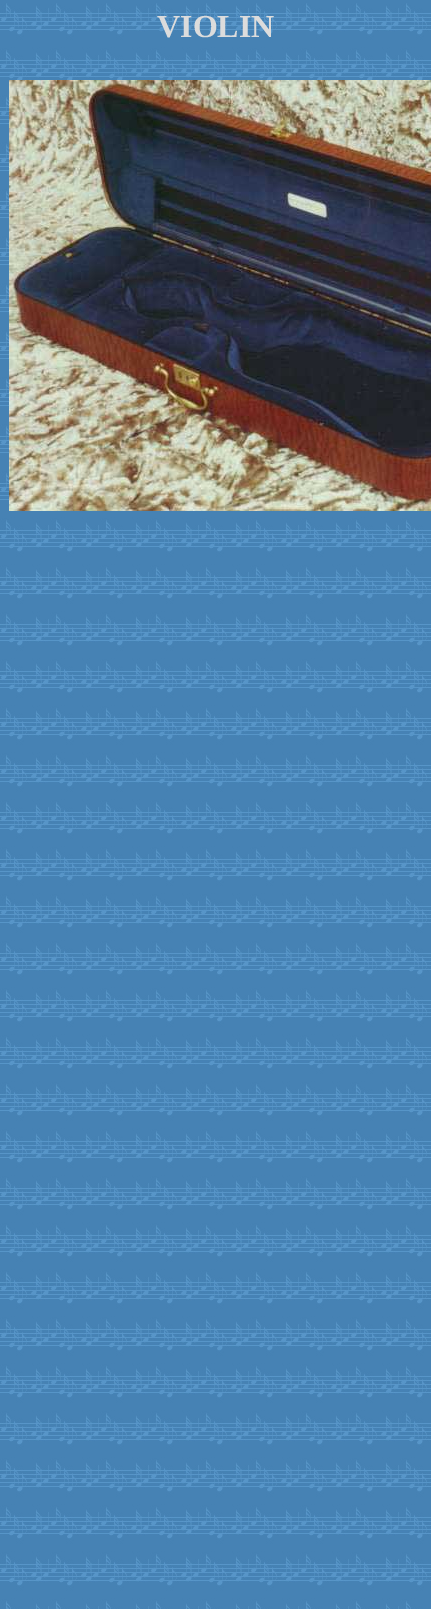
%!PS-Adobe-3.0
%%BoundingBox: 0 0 431 1609
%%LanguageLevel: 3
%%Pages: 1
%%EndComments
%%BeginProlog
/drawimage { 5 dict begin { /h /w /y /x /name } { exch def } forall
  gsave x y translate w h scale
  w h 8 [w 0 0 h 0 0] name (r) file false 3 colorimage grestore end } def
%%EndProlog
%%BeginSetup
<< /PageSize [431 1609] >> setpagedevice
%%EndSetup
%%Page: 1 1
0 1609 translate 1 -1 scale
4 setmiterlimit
0.275 0.51 0.706 setrgbcolor
0 0 431 1609 rectfill
(images/1.raw) 0 3 431 1606 drawimage
(images/2.raw) 9 80 422 431 drawimage
/LiberationSerif-Bold [32 0 0 -32 0 0] selectfont
0.863 setgray
157 37 moveto (VIOLIN) show
showpage
%%EOF
